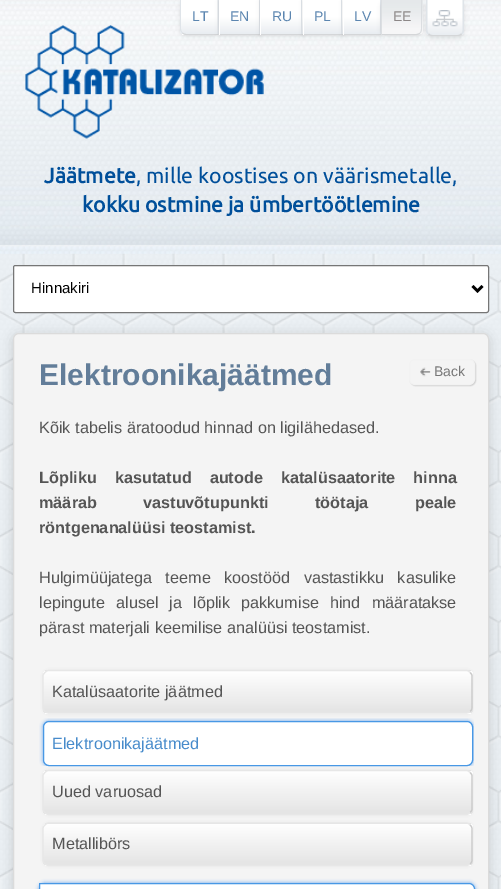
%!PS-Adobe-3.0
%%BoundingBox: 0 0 501 889
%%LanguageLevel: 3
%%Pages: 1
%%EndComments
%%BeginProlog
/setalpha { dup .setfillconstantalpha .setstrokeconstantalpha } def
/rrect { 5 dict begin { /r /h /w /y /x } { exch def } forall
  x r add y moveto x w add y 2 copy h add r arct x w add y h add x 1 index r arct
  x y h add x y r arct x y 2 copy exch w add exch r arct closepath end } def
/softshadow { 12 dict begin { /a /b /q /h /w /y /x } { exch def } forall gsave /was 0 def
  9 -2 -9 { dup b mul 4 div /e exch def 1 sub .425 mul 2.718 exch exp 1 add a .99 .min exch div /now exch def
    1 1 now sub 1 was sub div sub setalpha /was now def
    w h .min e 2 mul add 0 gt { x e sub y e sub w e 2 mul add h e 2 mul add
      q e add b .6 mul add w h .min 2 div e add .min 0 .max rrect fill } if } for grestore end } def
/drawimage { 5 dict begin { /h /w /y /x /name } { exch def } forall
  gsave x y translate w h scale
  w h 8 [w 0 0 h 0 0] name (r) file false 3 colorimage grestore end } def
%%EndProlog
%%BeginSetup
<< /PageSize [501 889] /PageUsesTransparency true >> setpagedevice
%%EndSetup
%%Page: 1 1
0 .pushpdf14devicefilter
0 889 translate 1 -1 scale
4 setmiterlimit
1 setgray
0 0 501 889 rectfill
(images/1.raw) 0 253 501 636 drawimage
(images/2.raw) 0 253 501 636 drawimage
(images/3.raw) 0 0 501 254 drawimage
(images/5.raw) 25 25 239 114 drawimage
0 setgray
180 1 39 35 6 2 0.1 softshadow
gsave
newpath 180 0 moveto 219 0 lineto 219 35 lineto 186 35 lineto 182.5 35 180 32.5 180 29 curveto closepath clip newpath
gsave newpath 180 0 moveto 218 0 lineto 218 34 lineto 180 34 lineto closepath clip newpath
<< /ShadingType 2 /ColorSpace /DeviceRGB /Coords [199 0 199 34] /Extend [true true] /Function << /FunctionType 3 /Domain [0 1] /Functions [<< /FunctionType 2 /Domain [0 1] /C0 [1 1 1] /C1 [1 1 1] /N 1 >> << /FunctionType 2 /Domain [0 1] /C0 [1 1 1] /C1 [0.914 0.929 0.945] /N 1 >>] /Bounds [0.5] /Encode [0 1 0 1] >> >> shfill grestore
gsave newpath 180 34 moveto 219 34 lineto 219 35 lineto 180 35 lineto closepath clip newpath
<< /ShadingType 2 /ColorSpace /DeviceRGB /Coords [199 34 199 68] /Extend [true true] /Function << /FunctionType 3 /Domain [0 1] /Functions [<< /FunctionType 2 /Domain [0 1] /C0 [1 1 1] /C1 [1 1 1] /N 1 >> << /FunctionType 2 /Domain [0 1] /C0 [1 1 1] /C1 [0.914 0.929 0.945] /N 1 >>] /Bounds [0.5] /Encode [0 1 0 1] >> >> shfill grestore
grestore
0.875 0.894 0.914 setrgbcolor
newpath 219 0 moveto 219 35 lineto 217.5 34 lineto 217.5 0 lineto closepath fill
0.831 0.839 0.847 setrgbcolor
newpath 219 35 moveto 217.5 34 lineto 186 34 lineto 185 34 183.5 33.5 182.5 32.5 curveto 182 33 lineto 183 34 184.5 35 186 35 curveto closepath fill
0.875 0.894 0.914 setrgbcolor
newpath 180 0 moveto 181 0 lineto 181 29 lineto 181 30 181.5 31.5 182.5 32.5 curveto 182 33 lineto 181 32 180 30.5 180 29 curveto closepath fill
0 setgray
219 1 41 35 0 2 0.1 softshadow
gsave newpath 220 0 moveto 259 0 lineto 259 34 lineto 220 34 lineto closepath clip newpath
<< /ShadingType 2 /ColorSpace /DeviceRGB /Coords [239 0 239 34] /Extend [true true] /Function << /FunctionType 3 /Domain [0 1] /Functions [<< /FunctionType 2 /Domain [0 1] /C0 [1 1 1] /C1 [1 1 1] /N 1 >> << /FunctionType 2 /Domain [0 1] /C0 [1 1 1] /C1 [0.914 0.929 0.945] /N 1 >>] /Bounds [0.5] /Encode [0 1 0 1] >> >> shfill grestore
0.875 0.894 0.914 setrgbcolor
259 0 1 35 rectfill
0.831 0.839 0.847 setrgbcolor
219 34 41 1 rectfill
1 setgray
219 0 1 35 rectfill
0 setgray
260 1 43 35 0 2 0.1 softshadow
gsave newpath 261 0 moveto 303 0 lineto 303 34 lineto 261 34 lineto closepath clip newpath
<< /ShadingType 2 /ColorSpace /DeviceRGB /Coords [281 0 281 34] /Extend [true true] /Function << /FunctionType 3 /Domain [0 1] /Functions [<< /FunctionType 2 /Domain [0 1] /C0 [1 1 1] /C1 [1 1 1] /N 1 >> << /FunctionType 2 /Domain [0 1] /C0 [1 1 1] /C1 [0.914 0.929 0.945] /N 1 >>] /Bounds [0.5] /Encode [0 1 0 1] >> >> shfill grestore
0.875 0.894 0.914 setrgbcolor
301 0 1 35 rectfill
0.831 0.839 0.847 setrgbcolor
260 34 43 1 rectfill
1 setgray
260 0 1 35 rectfill
0 setgray
303 1 40 35 0 2 0.1 softshadow
gsave newpath 304 0 moveto 343 0 lineto 343 34 lineto 304 34 lineto closepath clip newpath
<< /ShadingType 2 /ColorSpace /DeviceRGB /Coords [323 0 323 34] /Extend [true true] /Function << /FunctionType 3 /Domain [0 1] /Functions [<< /FunctionType 2 /Domain [0 1] /C0 [1 1 1] /C1 [1 1 1] /N 1 >> << /FunctionType 2 /Domain [0 1] /C0 [1 1 1] /C1 [0.914 0.929 0.945] /N 1 >>] /Bounds [0.5] /Encode [0 1 0 1] >> >> shfill grestore
0.875 0.894 0.914 setrgbcolor
341 0 1 35 rectfill
0.831 0.839 0.847 setrgbcolor
303 34 40 1 rectfill
1 setgray
303 0 1 35 rectfill
0 setgray
343 1 38 35 0 2 0.1 softshadow
gsave newpath 344 0 moveto 380 0 lineto 380 34 lineto 344 34 lineto closepath clip newpath
<< /ShadingType 2 /ColorSpace /DeviceRGB /Coords [362 0 362 34] /Extend [true true] /Function << /FunctionType 3 /Domain [0 1] /Functions [<< /FunctionType 2 /Domain [0 1] /C0 [1 1 1] /C1 [1 1 1] /N 1 >> << /FunctionType 2 /Domain [0 1] /C0 [1 1 1] /C1 [0.914 0.929 0.945] /N 1 >>] /Bounds [0.5] /Encode [0 1 0 1] >> >> shfill grestore
0.875 0.894 0.914 setrgbcolor
380 0 1 35 rectfill
0.831 0.839 0.847 setrgbcolor
343 34 38 1 rectfill
1 setgray
343 0 1 35 rectfill
0 setgray
381 1 42 35 6 2 0.1 softshadow
gsave
newpath 381 0 moveto 423 0 lineto 423 29 lineto 423 32.5 420.5 35 417 35 curveto 381 35 lineto closepath clip newpath
gsave newpath 382 0 moveto 423 0 lineto 423 34 lineto 382 34 lineto closepath clip newpath
<< /ShadingType 2 /ColorSpace /DeviceRGB /Coords [402 0 402 34] /Extend [true true] /Function << /FunctionType 3 /Domain [0 1] /Functions [<< /FunctionType 2 /Domain [0 1] /C0 [0.898 0.91 0.918] /C1 [0.91 0.922 0.929] /N 1 >> << /FunctionType 2 /Domain [0 1] /C0 [0.91 0.922 0.929] /C1 [0.965 0.965 0.969] /N 1 >> << /FunctionType 2 /Domain [0 1] /C0 [0.965 0.965 0.969] /C1 [0.965 0.965 0.969] /N 1 >>] /Bounds [0.31 0.84] /Encode [0 1 0 1 0 1] >> >> shfill grestore
gsave newpath 381 34 moveto 423 34 lineto 423 35 lineto 381 35 lineto closepath clip newpath
<< /ShadingType 2 /ColorSpace /DeviceRGB /Coords [402 34 402 68] /Extend [true true] /Function << /FunctionType 3 /Domain [0 1] /Functions [<< /FunctionType 2 /Domain [0 1] /C0 [0.898 0.91 0.918] /C1 [0.91 0.922 0.929] /N 1 >> << /FunctionType 2 /Domain [0 1] /C0 [0.91 0.922 0.929] /C1 [0.965 0.965 0.969] /N 1 >> << /FunctionType 2 /Domain [0 1] /C0 [0.965 0.965 0.969] /C1 [0.965 0.965 0.969] /N 1 >>] /Bounds [0.31 0.84] /Encode [0 1 0 1 0 1] >> >> shfill grestore
grestore
0.863 0.875 0.886 setrgbcolor
newpath 422 0 moveto 421 0 lineto 421 29 lineto 421 30.5 420.5 31.5 420 32.5 curveto 420.5 33 lineto 421.5 32 422 30.5 422 29 curveto closepath fill
0.831 0.839 0.847 setrgbcolor
newpath 381 35 moveto 416 35 lineto 418 35 419.5 34 420.5 33 curveto 420 32.5 lineto 419 33.5 417.5 34 416 34 curveto 382 34 lineto closepath fill
0.863 0.875 0.886 setrgbcolor
newpath 382 0 moveto 382 34 lineto 381 35 lineto 381 0 lineto closepath fill
0 setgray
426 1 38 37 6 2 0.1 softshadow
gsave
newpath 426 0 moveto 464 0 lineto 464 30 lineto 464 33.5 461.5 36 458 36 curveto 432 36 lineto 428.5 36 426 33.5 426 30 curveto closepath clip newpath
gsave newpath 426 0 moveto 464 0 lineto 464 35 lineto 426 35 lineto closepath clip newpath
<< /ShadingType 2 /ColorSpace /DeviceRGB /Coords [445 0 445 35] /Extend [true true] /Function << /FunctionType 3 /Domain [0 1] /Functions [<< /FunctionType 2 /Domain [0 1] /C0 [1 1 1] /C1 [1 1 1] /N 1 >> << /FunctionType 2 /Domain [0 1] /C0 [1 1 1] /C1 [0.914 0.929 0.945] /N 1 >>] /Bounds [0.5] /Encode [0 1 0 1] >> >> shfill grestore
grestore
0.875 0.894 0.914 setrgbcolor
newpath 464 0 moveto 464 31.5 lineto 463.5 33 463 33.5 462 34.5 curveto 461 33.5 lineto 462 33 462.5 31.5 462.5 30 curveto 462.5 0 lineto closepath fill
0.831 0.839 0.847 setrgbcolor
newpath 462 34.5 moveto 461 35.5 459 36 457.5 36 curveto 432.5 36 lineto 431 36 429 35.5 428 34.5 curveto 429 33.5 lineto 430 34.5 431 35 432.5 35 curveto 457.5 35 lineto 459 35 460 34.5 461 33.5 curveto closepath fill
0.875 0.894 0.914 setrgbcolor
newpath 427.5 0 moveto 427.5 30 lineto 427.5 31.5 428 33 429 33.5 curveto 428 34.5 lineto 427 33.5 426.5 33 426 31.5 curveto 426 0 lineto closepath fill
(images/4.raw) 432 10 26 17 drawimage
1 setgray
13.5 265.5 475 47 2 rrect gsave fill grestore
0.463 setgray
stroke
0 setgray
2.5 setlinewidth
newpath 472.5 286 moveto 477.5 291 lineto 482.5 286 lineto stroke
13 335 476 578 6 6 0.15 softshadow
0.957 setgray
13.5 333.5 475 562 5.5 rrect gsave fill grestore
0.859 setgray
1 setlinewidth
stroke
gsave
newpath 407 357 moveto 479 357 lineto 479 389 lineto 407 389 lineto closepath 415 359 moveto 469 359 lineto 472.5 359 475 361.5 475 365 curveto 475 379 lineto 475 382.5 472.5 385 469 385 curveto 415 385 lineto 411.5 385 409 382.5 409 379 curveto 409 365 lineto 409 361.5 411.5 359 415 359 curveto closepath eoclip newpath
0 setgray
410 360 66 26 6 0.5 0.15 softshadow
grestore
(images/6.raw) 420 367 11 10 drawimage
0.949 setgray
409.5 359.5 65 25 5.5 rrect stroke
gsave
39 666 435 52 rectclip
0.906 setgray
43 670 430 44 6 2 1 softshadow
grestore
gsave
43 670 430 44 6 rrect clip newpath
gsave newpath 43 670 moveto 473 670 lineto 473 671 lineto 43 671 lineto closepath clip newpath
<< /ShadingType 2 /ColorSpace /DeviceRGB /Coords [258 630 258 671] /Extend [true true] /Function << /FunctionType 3 /Domain [0 1] /Functions [<< /FunctionType 2 /Domain [0 1] /C0 [1 1 1] /C1 [0.894 0.894 0.894] /N 1 >> << /FunctionType 2 /Domain [0 1] /C0 [0.894 0.894 0.894] /C1 [0.894 0.894 0.894] /N 1 >>] /Bounds [0.99] /Encode [0 1 0 1] >> >> shfill grestore
gsave newpath 43 671 moveto 473 671 lineto 473 713 lineto 43 713 lineto closepath clip newpath
<< /ShadingType 2 /ColorSpace /DeviceRGB /Coords [258 671 258 713] /Extend [true true] /Function << /FunctionType 3 /Domain [0 1] /Functions [<< /FunctionType 2 /Domain [0 1] /C0 [1 1 1] /C1 [0.894 0.894 0.894] /N 1 >> << /FunctionType 2 /Domain [0 1] /C0 [0.894 0.894 0.894] /C1 [0.894 0.894 0.894] /N 1 >>] /Bounds [0.99] /Encode [0 1 0 1] >> >> shfill grestore
gsave newpath 43 713 moveto 473 713 lineto 473 714 lineto 43 714 lineto closepath clip newpath
<< /ShadingType 2 /ColorSpace /DeviceRGB /Coords [258 713 258 754] /Extend [true true] /Function << /FunctionType 3 /Domain [0 1] /Functions [<< /FunctionType 2 /Domain [0 1] /C0 [1 1 1] /C1 [0.894 0.894 0.894] /N 1 >> << /FunctionType 2 /Domain [0 1] /C0 [0.894 0.894 0.894] /C1 [0.894 0.894 0.894] /N 1 >>] /Bounds [0.99] /Encode [0 1 0 1] >> >> shfill grestore
grestore
0.796 setgray
1.2 setlinewidth
newpath 470 672.5 moveto 471.5 673.5 472 675 472 676 curveto 472 707.5 lineto 472 709 471.5 710.5 470 711.5 curveto stroke
0.906 setgray
newpath 470 711.5 moveto 469 712.5 467.5 713 466 713 curveto 49 713 lineto 47.5 713 46 712.5 45 711.5 curveto 43.5 710.5 43 709 43 707.5 curveto 43 676 lineto 43 675 43.5 673.5 45 672.5 curveto 46 671 47.5 670.5 49 670.5 curveto 466 670.5 lineto 467.5 670.5 469 671 470 672.5 curveto stroke
gsave
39 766 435 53 rectclip
43 770 430 45 6 2 1 softshadow
grestore
gsave
43 770 430 45 6 rrect clip newpath
gsave newpath 43 770 moveto 473 770 lineto 473 771 lineto 43 771 lineto closepath clip newpath
<< /ShadingType 2 /ColorSpace /DeviceRGB /Coords [258 729 258 771] /Extend [true true] /Function << /FunctionType 3 /Domain [0 1] /Functions [<< /FunctionType 2 /Domain [0 1] /C0 [1 1 1] /C1 [0.894 0.894 0.894] /N 1 >> << /FunctionType 2 /Domain [0 1] /C0 [0.894 0.894 0.894] /C1 [0.894 0.894 0.894] /N 1 >>] /Bounds [0.99] /Encode [0 1 0 1] >> >> shfill grestore
gsave newpath 43 771 moveto 473 771 lineto 473 814 lineto 43 814 lineto closepath clip newpath
<< /ShadingType 2 /ColorSpace /DeviceRGB /Coords [258 771 258 814] /Extend [true true] /Function << /FunctionType 3 /Domain [0 1] /Functions [<< /FunctionType 2 /Domain [0 1] /C0 [1 1 1] /C1 [0.894 0.894 0.894] /N 1 >> << /FunctionType 2 /Domain [0 1] /C0 [0.894 0.894 0.894] /C1 [0.894 0.894 0.894] /N 1 >>] /Bounds [0.99] /Encode [0 1 0 1] >> >> shfill grestore
grestore
0.796 setgray
newpath 470 772.5 moveto 471.5 773.5 472 775 472 776 curveto 472 809 lineto 472 810 471.5 811.5 470 812.5 curveto stroke
gsave
43 770 430 45 6 rrect clip newpath
gsave newpath 43 814 moveto 473 814 lineto 473 815 lineto 43 815 lineto closepath clip newpath
<< /ShadingType 2 /ColorSpace /DeviceRGB /Coords [258 814 258 856] /Extend [true true] /Function << /FunctionType 3 /Domain [0 1] /Functions [<< /FunctionType 2 /Domain [0 1] /C0 [1 1 1] /C1 [0.894 0.894 0.894] /N 1 >> << /FunctionType 2 /Domain [0 1] /C0 [0.894 0.894 0.894] /C1 [0.894 0.894 0.894] /N 1 >>] /Bounds [0.99] /Encode [0 1 0 1] >> >> shfill grestore
grestore
0.906 setgray
newpath 470 812.5 moveto 469 814 467.5 814.5 466 814.5 curveto 49 814.5 lineto 47.5 814.5 46 814 45 812.5 curveto 43.5 811.5 43 810 43 809 curveto 43 776 lineto 43 775 43.5 773.5 45 772.5 curveto 46 771 47.5 770.5 49 770.5 curveto 466 770.5 lineto 467.5 770.5 469 771 470 772.5 curveto stroke
gsave
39 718 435 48 rectclip
0.384 0.627 0.914 setrgbcolor
43 721 430 45 6 2 1 softshadow
grestore
1 setgray
43.5 721.5 429 44 5.5 rrect gsave fill grestore
0.282 0.596 0.898 setrgbcolor
1 setlinewidth
stroke
gsave
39 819 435 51 rectclip
0.906 setgray
43 823 430 43 6 2 1 softshadow
grestore
gsave
43 823 430 43 6 rrect clip newpath
gsave newpath 43 823 moveto 473 823 lineto 473 824 lineto 43 824 lineto closepath clip newpath
<< /ShadingType 2 /ColorSpace /DeviceRGB /Coords [258 783 258 824] /Extend [true true] /Function << /FunctionType 3 /Domain [0 1] /Functions [<< /FunctionType 2 /Domain [0 1] /C0 [1 1 1] /C1 [0.894 0.894 0.894] /N 1 >> << /FunctionType 2 /Domain [0 1] /C0 [0.894 0.894 0.894] /C1 [0.894 0.894 0.894] /N 1 >>] /Bounds [0.99] /Encode [0 1 0 1] >> >> shfill grestore
gsave newpath 43 824 moveto 473 824 lineto 473 865 lineto 43 865 lineto closepath clip newpath
<< /ShadingType 2 /ColorSpace /DeviceRGB /Coords [258 824 258 865] /Extend [true true] /Function << /FunctionType 3 /Domain [0 1] /Functions [<< /FunctionType 2 /Domain [0 1] /C0 [1 1 1] /C1 [0.894 0.894 0.894] /N 1 >> << /FunctionType 2 /Domain [0 1] /C0 [0.894 0.894 0.894] /C1 [0.894 0.894 0.894] /N 1 >>] /Bounds [0.99] /Encode [0 1 0 1] >> >> shfill grestore
gsave newpath 43 865 moveto 473 865 lineto 473 866 lineto 43 866 lineto closepath clip newpath
<< /ShadingType 2 /ColorSpace /DeviceRGB /Coords [258 865 258 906] /Extend [true true] /Function << /FunctionType 3 /Domain [0 1] /Functions [<< /FunctionType 2 /Domain [0 1] /C0 [1 1 1] /C1 [0.894 0.894 0.894] /N 1 >> << /FunctionType 2 /Domain [0 1] /C0 [0.894 0.894 0.894] /C1 [0.894 0.894 0.894] /N 1 >>] /Bounds [0.99] /Encode [0 1 0 1] >> >> shfill grestore
grestore
0.796 setgray
1.2 setlinewidth
newpath 470 825 moveto 471.5 826 472 827.5 472 829 curveto 472 860 lineto 472 861.5 471.5 863 470 864 curveto stroke
0.906 setgray
newpath 470 864 moveto 469 865 467.5 865.5 466 865.5 curveto 49 865.5 lineto 47.5 865.5 46 865 45 864 curveto 43.5 863 43 861.5 43 860 curveto 43 829 lineto 43 827.5 43.5 826 45 825 curveto 46 823.5 47.5 823 49 823 curveto 466 823 lineto 467.5 823 469 823.5 470 825 curveto stroke
0.384 0.627 0.914 setrgbcolor
39 883 436 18 6 2 1 softshadow
1 setgray
newpath 39.5 883.5 moveto 469 883.5 lineto 472 883.5 474.5 886 474.5 889 curveto 474.5 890 lineto 474.5 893 472 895.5 469 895.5 curveto 45 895.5 lineto 42 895.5 39.5 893 39.5 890 curveto closepath gsave fill grestore
0.282 0.596 0.898 setrgbcolor
1 setlinewidth
stroke
/LiberationSans-Regular [14 0 0 -14 0 0] selectfont
0.361 0.525 0.69 setrgbcolor
192 21 moveto (LT) show
230 21 moveto (EN) show
272 21 moveto (RU) show
314 21 moveto (PL) show
354 21 moveto (LV) show
0.549 0.529 0.529 setrgbcolor
393 21 moveto (EE) show
/Ubuntu-Bold [21.25 0 0 -21.25 0 0] selectfont
0 0.31 0.604 setrgbcolor
44 183 moveto (Jäätmete) show
/Ubuntu-Regular [21.25 0 0 -21.25 0 0] selectfont
136 183 moveto (, mille koostises on väärismetalle,) show
/Ubuntu-Bold [21.25 0 0 -21.25 0 0] selectfont
82 212 moveto (kokku ostmine ja ümbertöötlemine) show
/LiberationSans-Regular [15 0 0 -15 0 0] selectfont
0 setgray
31 293 moveto (Hinnakiri) show
/LiberationSans-Bold [30 0 0 -30 0 0] selectfont
0.384 0.49 0.6 setrgbcolor
39 385 moveto (Elektroonikajäätmed) show
/LiberationSans-Regular [14 0 0 -14 0 0] selectfont
0.467 setgray
434 376 moveto (Back) show
/LiberationSans-Regular [16.25 0 0 -16.25 0 0] selectfont
0.333 setgray
39 433 moveto (Kõik tabelis äratoodud hinnad on ligilähedased.) show
/LiberationSans-Bold [16.25 0 0 -16.25 0 0] selectfont
39 483 moveto 13.5 0 32 (Lõpliku kasutatud autode katalüsaatorite hinna) widthshow
39 508 moveto (määrab) show
143 508 moveto (vastuvõtupunkti) show
315 508 moveto 42 0 32 (töötaja peale) widthshow
39 533 moveto (röntgenanalüüsi teostamist.) show
/LiberationSans-Regular [16.25 0 0 -16.25 0 0] selectfont
39 583 moveto 9 0 32 (Hulgimüüjatega teeme koostööd vastastikku kasulike) widthshow
39 608 moveto 6.5 0 32 (lepingute alusel ja lõplik pakkumise hind määratakse) widthshow
39 633 moveto (pärast materjali keemilise analüüsi teostamist.) show
52 697 moveto (Katalüsaatorite jäätmed) show
0.278 0.545 0.796 setrgbcolor
52 749 moveto (Elektroonikajäätmed) show
0.333 setgray
52 797 moveto (Uued varuosad) show
52 849 moveto (Metallibörs) show
.poppdf14devicefilter showpage
%%EOF
